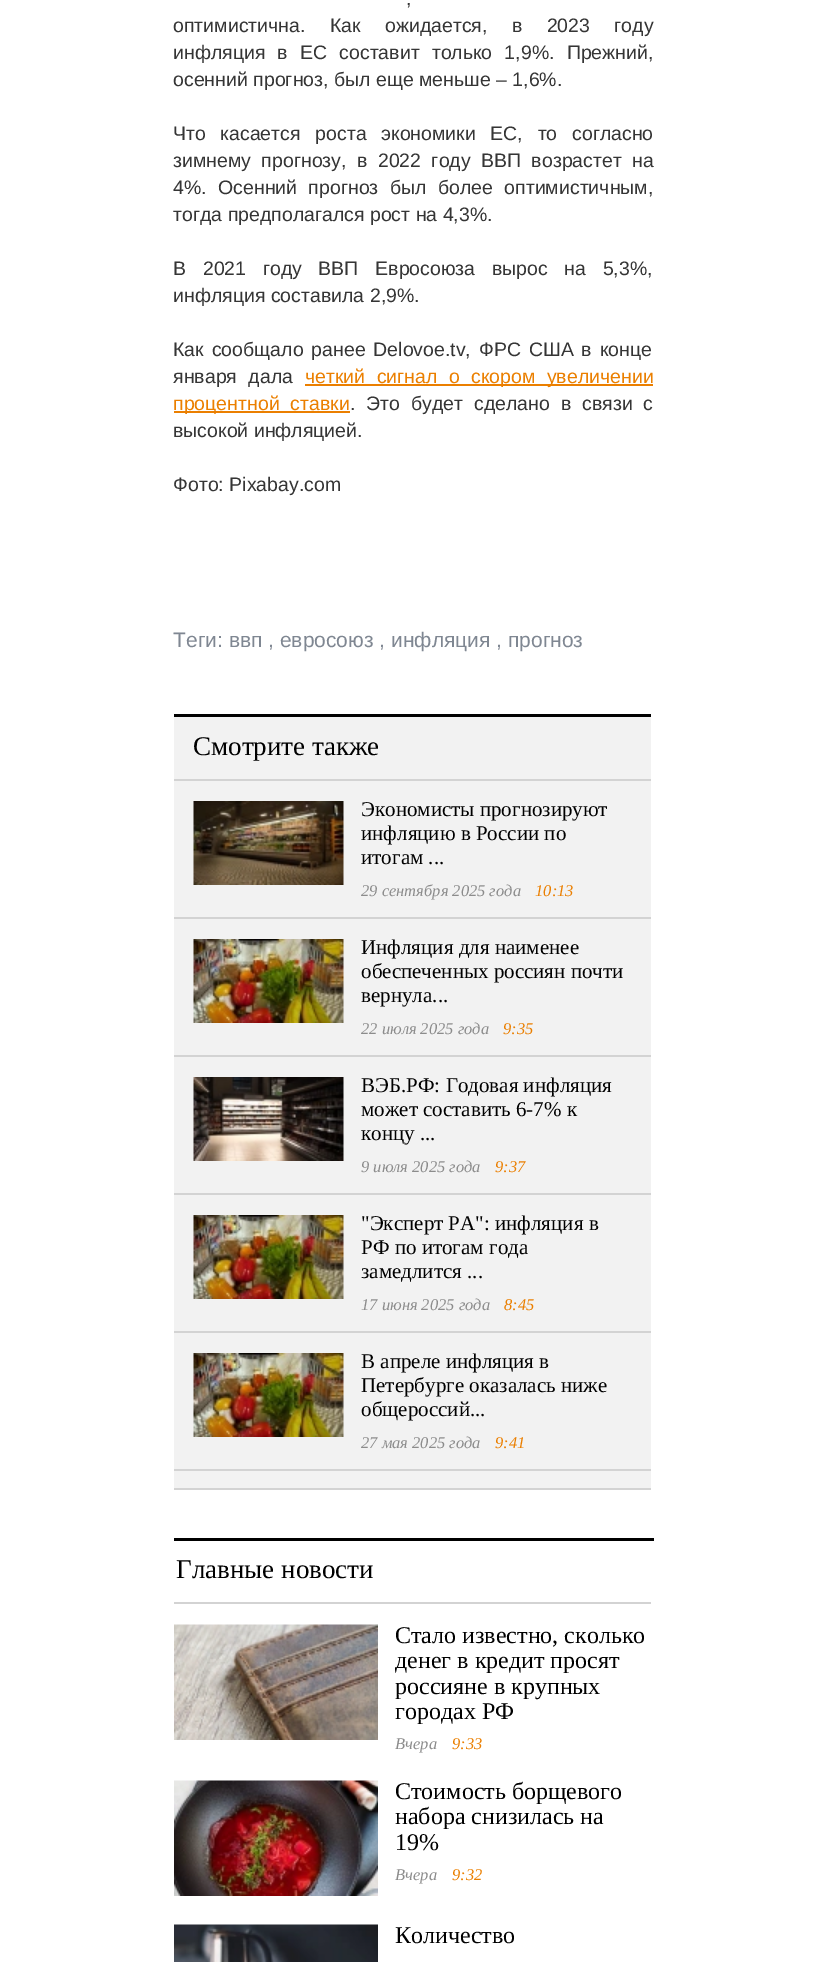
%!PS-Adobe-3.0
%%BoundingBox: 0 0 826 1962
%%LanguageLevel: 3
%%Pages: 1
%%EndComments
%%BeginProlog
/drawimage { 5 dict begin { /h /w /y /x /name } { exch def } forall
  gsave x y translate w h scale
  w h 8 [w 0 0 h 0 0] name (r) file false 3 colorimage grestore end } def
%%EndProlog
%%BeginSetup
<< /PageSize [826 1962] >> setpagedevice
%%EndSetup
%%Page: 1 1
0 1962 translate 1 -1 scale
4 setmiterlimit
1 setgray
0 0 826 1962 rectfill
0.922 0.498 0 setrgbcolor
305 384 348 2 rectfill
174 411 176 2 rectfill
0.949 setgray
174 717 477 771 rectfill
0 setgray
174 714 477 3 rectfill
0.827 setgray
174 1488 477 2 rectfill
174 779 477 2 rectfill
174 917 477 2 rectfill
(images/1.raw) 193 801 151 84 drawimage
174 1055 477 2 rectfill
(images/2.raw) 193 939 151 84 drawimage
174 1193 477 2 rectfill
(images/3.raw) 193 1077 151 84 drawimage
174 1331 477 2 rectfill
(images/2.raw) 193 1215 151 84 drawimage
174 1469 477 2 rectfill
(images/2.raw) 193 1353 151 84 drawimage
0 setgray
174 1538 480 3 rectfill
0.827 setgray
174 1602 477 2 rectfill
(images/4.raw) 174 1624 204 116 drawimage
(images/5.raw) 174 1780 204 116 drawimage
(images/6.raw) 174 1924 204 38 drawimage
/LiberationSans-Regular [19.5 0 0 -19.5 0 0] selectfont
0.208 setgray
406 5 moveto 7 0 32 (,) widthshow
173 32 moveto 19 0 32 (оптимистична. Как ожидается, в 2023 году) widthshow
173 59 moveto 6.75 0 32 (инфляция в ЕС составит только 1,9%. Прежний,) widthshow
173 86 moveto (осенний прогноз, был еще меньше – 1,6%.) show
173 140 moveto 9.25 0 32 (Что касается роста экономики ЕС, то согласно) widthshow
173 167 moveto 5 0 32 (зимнему прогнозу, в 2022 году ВВП возрастет на) widthshow
173 194 moveto 6 0 32 (4%. Осенний прогноз был более оптимистичным,) widthshow
173 221 moveto (тогда предполагался рост на 4,3%.) show
173 275 moveto 11.25 0 32 (В 2021 году ВВП Евросоюза вырос на 5,3%,) widthshow
173 302 moveto (инфляция составила 2,9%.) show
173 356 moveto 2.5 0 32 (Как сообщало ранее Delovoe.tv, ФРС США в конце) widthshow
173 383 moveto 6 0 32 (января дала) widthshow
0.922 0.498 0 setrgbcolor
305 383 moveto 6 0 32 (четкий сигнал о скором увеличении) widthshow
173 410 moveto 5.5 0 32 (процентной ставки) widthshow
0.208 setgray
350 410 moveto 5.5 0 32 (. Это будет сделано в связи с) widthshow
173 437 moveto (высокой инфляцией.) show
173 491 moveto (Фото: Pixabay.com) show
/LiberationSans-Regular [21 0 0 -21 0 0] selectfont
0.498 0.529 0.573 setrgbcolor
173 647 moveto (Теги: ввп , евросоюз , инфляция , прогноз) show
/LiberationSerif-Regular [27 0 0 -27 0 0] selectfont
0 setgray
193 755 moveto (Смотрите также) show
/LiberationSerif-Regular [21 0 0 -21 0 0] selectfont
361 816 moveto (Экономисты прогнозируют) show
361 840 moveto (инфляцию в России по) show
361 864 moveto (итогам ...) show
/LiberationSerif-Italic [16.5 0 0 -16.5 0 0] selectfont
0.549 setgray
361 896 moveto (29 сентября 2025 года) show
0.922 0.498 0 setrgbcolor
535 896 moveto (10:13) show
/LiberationSerif-Regular [21 0 0 -21 0 0] selectfont
0 setgray
361 954 moveto (Инфляция для наименее) show
361 978 moveto (обеспеченных россиян почти) show
361 1002 moveto (вернула...) show
/LiberationSerif-Italic [16.5 0 0 -16.5 0 0] selectfont
0.549 setgray
361 1034 moveto (22 июля 2025 года) show
0.922 0.498 0 setrgbcolor
503 1034 moveto (9:35) show
/LiberationSerif-Regular [21 0 0 -21 0 0] selectfont
0 setgray
361 1092 moveto (ВЭБ.РФ: Годовая инфляция) show
361 1116 moveto (может составить 6-7% к) show
361 1140 moveto (концу ...) show
/LiberationSerif-Italic [16.5 0 0 -16.5 0 0] selectfont
0.549 setgray
361 1172 moveto (9 июля 2025 года) show
0.922 0.498 0 setrgbcolor
495 1172 moveto (9:37) show
/LiberationSerif-Regular [21 0 0 -21 0 0] selectfont
0 setgray
361 1230 moveto ("Эксперт РА": инфляция в) show
361 1254 moveto (РФ по итогам года) show
361 1278 moveto (замедлится ...) show
/LiberationSerif-Italic [16.5 0 0 -16.5 0 0] selectfont
0.549 setgray
361 1310 moveto (17 июня 2025 года) show
0.922 0.498 0 setrgbcolor
504 1310 moveto (8:45) show
/LiberationSerif-Regular [21 0 0 -21 0 0] selectfont
0 setgray
361 1368 moveto (В апреле инфляция в) show
361 1392 moveto (Петербурге оказалась ниже) show
361 1416 moveto (общероссий...) show
/LiberationSerif-Italic [16.5 0 0 -16.5 0 0] selectfont
0.549 setgray
361 1448 moveto (27 мая 2025 года) show
0.922 0.498 0 setrgbcolor
495 1448 moveto (9:41) show
/LiberationSerif-Regular [27 0 0 -27 0 0] selectfont
0 setgray
176 1578 moveto (Главные новости) show
/LiberationSerif-Regular [24 0 0 -24 0 0] selectfont
395 1643 moveto (Стало известно, сколько) show
395 1668 moveto (денег в кредит просят) show
395 1694 moveto (россияне в крупных) show
395 1719 moveto (городах РФ) show
/LiberationSerif-Italic [16.5 0 0 -16.5 0 0] selectfont
0.549 setgray
395 1749 moveto (Вчера) show
0.922 0.498 0 setrgbcolor
452 1749 moveto (9:33) show
/LiberationSerif-Regular [24 0 0 -24 0 0] selectfont
0 setgray
395 1799 moveto (Стоимость борщевого) show
395 1824 moveto (набора снизилась на) show
395 1850 moveto (19%) show
/LiberationSerif-Italic [16.5 0 0 -16.5 0 0] selectfont
0.549 setgray
395 1880 moveto (Вчера) show
0.922 0.498 0 setrgbcolor
452 1880 moveto (9:32) show
/LiberationSerif-Regular [24 0 0 -24 0 0] selectfont
0 setgray
395 1943 moveto (Количество) show
showpage
%%EOF
